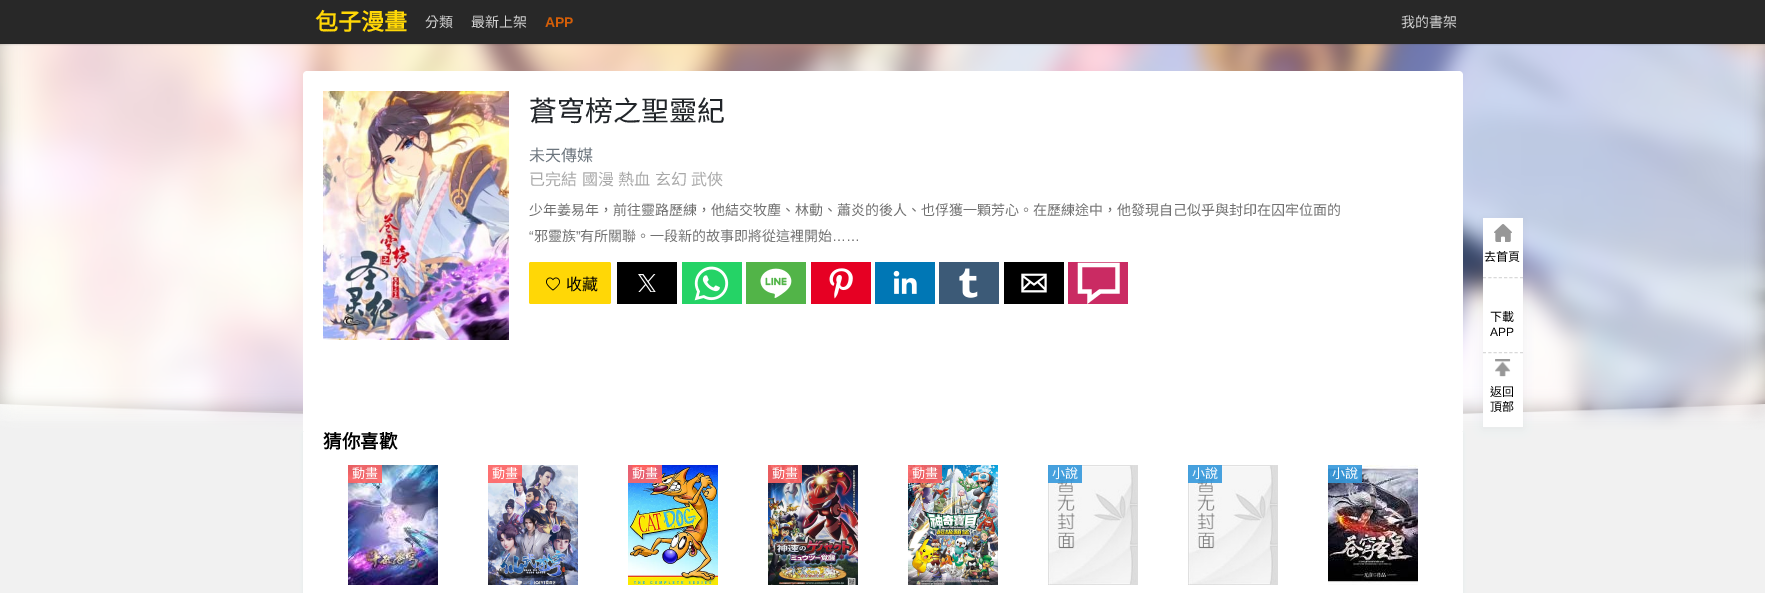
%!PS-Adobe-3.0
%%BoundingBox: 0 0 1765 593
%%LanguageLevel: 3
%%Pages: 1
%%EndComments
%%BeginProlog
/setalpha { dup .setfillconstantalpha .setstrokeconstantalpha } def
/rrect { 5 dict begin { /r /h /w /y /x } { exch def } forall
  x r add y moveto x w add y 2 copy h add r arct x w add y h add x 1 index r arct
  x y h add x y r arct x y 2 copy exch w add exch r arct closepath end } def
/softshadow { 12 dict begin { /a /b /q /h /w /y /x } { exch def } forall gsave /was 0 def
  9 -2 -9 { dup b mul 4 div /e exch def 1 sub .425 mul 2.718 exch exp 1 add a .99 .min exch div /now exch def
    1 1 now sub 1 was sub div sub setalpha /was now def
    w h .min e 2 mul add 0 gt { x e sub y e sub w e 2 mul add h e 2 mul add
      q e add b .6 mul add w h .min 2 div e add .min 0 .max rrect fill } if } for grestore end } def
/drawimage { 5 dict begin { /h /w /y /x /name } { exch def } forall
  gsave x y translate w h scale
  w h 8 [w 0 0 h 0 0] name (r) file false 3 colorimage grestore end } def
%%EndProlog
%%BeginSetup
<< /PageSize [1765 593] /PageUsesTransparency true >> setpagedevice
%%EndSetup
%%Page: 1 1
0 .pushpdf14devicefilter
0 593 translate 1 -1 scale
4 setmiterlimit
0.945 setgray
0 0 1765 593 rectfill
0.718 0.702 0.694 setrgbcolor
184 411 1397 3 rectfill
(images/1.raw) 0 44 1765 367 drawimage
(images/12.raw) 0 404 1765 17 drawimage
0.416 0.451 0.522 setrgbcolor
303 432 1160 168 2 1.5 0.08 softshadow
(images/2.raw) 0 44 1765 386 drawimage
0 setgray
0 1 1765 44 0 0.5 0.1 softshadow
0.157 setgray
0 0 1765 44 rectfill
1 setgray
newpath 307 71 moveto 1459 71 lineto 1461 71 1463 73 1463 75 curveto 1463 431 lineto 303 431 lineto 303 75 lineto 303 73 305 71 307 71 curveto closepath fill
(images/3.raw) 323 91 186 249 drawimage
1 0.843 0.024 setrgbcolor
529 262 82 42 2 rrect fill
(images/4.raw) 546 277 14 14 drawimage
0 setgray
617 262 60 42 rectfill
(images/5.raw) 638 274 18 18 drawimage
0.145 0.827 0.4 setrgbcolor
682 262 60 42 rectfill
(images/6.raw) 694 266 35 35 drawimage
0.322 0.706 0.282 setrgbcolor
746 262 60 42 rectfill
(images/7.raw) 760 268 32 30 drawimage
0.902 0 0.137 setrgbcolor
811 262 60 42 rectfill
(images/8.raw) 829 268 24 31 drawimage
0 0.467 0.71 setrgbcolor
875 262 60 42 rectfill
(images/9.raw) 893 270 24 24 drawimage
0.235 0.353 0.467 setrgbcolor
939 262 60 42 rectfill
(images/10.raw) 959 268 19 30 drawimage
0 setgray
1004 262 60 42 rectfill
(images/11.raw) 1021 273 26 20 drawimage
0.792 0.169 0.388 setrgbcolor
1068 262 60 42 rectfill
1 setgray
4.3 setlinewidth
newpath 1089.5 299.5 moveto 1089.5 291.5 lineto 1080 291.5 lineto 1080 265 lineto 1117.5 265 lineto 1117.5 291.5 lineto 1100 291.5 lineto closepath stroke
0.416 0.451 0.522 setrgbcolor
1483 219 40 209 0 5 0.1 softshadow
1 setgray
1483 218 40 209 rectfill
(images/13.raw) 1494 224 18 18 drawimage
0.851 setgray
1 setlinewidth
[3 2.29] 0 setdash
newpath 1483 277.5 moveto 1523 277.5 lineto stroke
newpath 1483 352.5 moveto 1523 352.5 lineto stroke
(images/14.raw) 1495 359 16 18 drawimage
1 setgray
303 431 1160 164 2 rrect fill
(images/15.raw) 348 465 90 120 drawimage
0.9 setalpha
1 0.388 0.388 setrgbcolor
348 465 34 18 rectfill
1 setalpha
(images/16.raw) 488 465 90 120 drawimage
0.9 setalpha
488 465 34 18 rectfill
1 setalpha
(images/17.raw) 628 465 90 120 drawimage
0.9 setalpha
628 465 34 18 rectfill
1 setalpha
(images/18.raw) 768 465 90 120 drawimage
0.9 setalpha
768 465 34 18 rectfill
1 setalpha
(images/19.raw) 908 465 90 120 drawimage
0.9 setalpha
908 465 34 18 rectfill
1 setalpha
(images/20.raw) 1048 465 90 120 drawimage
0.9 setalpha
0.204 0.596 0.859 setrgbcolor
1048 465 34 18 rectfill
1 setalpha
(images/21.raw) 1188 465 90 120 drawimage
0.9 setalpha
1188 465 34 18 rectfill
1 setalpha
(images/22.raw) 1328 465 90 120 drawimage
0.9 setalpha
1328 465 34 18 rectfill
/NotoSansCJKTC-Bold [23 0 0 -23 0 0] selectfont
1 setalpha
1 0.843 0.024 setrgbcolor
315 30 moveto (包子漫畫) show
/NotoSansCJKTC-Regular [14 0 0 -14 0 0] selectfont
0.831 setgray
425 27 moveto (分類) show
471 27 moveto (最新上架) show
/LiberationSans-Bold [14 0 0 -14 0 0] selectfont
0.831 0.369 0.031 setrgbcolor
545 27 moveto (APP) show
/NotoSansCJKTC-Regular [14 0 0 -14 0 0] selectfont
0.831 setgray
1401 27 moveto (我的書架) show
/NotoSansCJKTC-Regular [28 0 0 -28 0 0] selectfont
0.129 0.145 0.161 setrgbcolor
529 121 moveto (蒼穹榜之聖靈紀) show
/NotoSansCJKTC-Regular [16 0 0 -16 0 0] selectfont
0.424 0.459 0.49 setrgbcolor
529 161 moveto (未天傳媒) show
0.659 setgray
529 185 moveto (已完結) show
582 185 moveto (國漫) show
618 185 moveto (熱血) show
655 185 moveto (玄幻) show
691 185 moveto (武俠) show
/NotoSansCJKTC-Regular [14 0 0 -14 0 0] selectfont
0.439 setgray
529 215 moveto (少年姜易年，前往靈路歷練，他結交牧塵、林動、蕭炎的後人、也俘獲一顆芳心。在歷練途中，他發現自己似乎與封印在囚牢位面的) show
/LiberationSans-Regular [14 0 0 -14 0 0] selectfont
529 241 moveto (“) show
/NotoSansCJKTC-Regular [14 0 0 -14 0 0] selectfont
534 241 moveto (邪靈族) show
/LiberationSans-Regular [14 0 0 -14 0 0] selectfont
576 241 moveto (”) show
/NotoSansCJKTC-Regular [14 0 0 -14 0 0] selectfont
580 241 moveto (有所關聯。一段新的故事即將從這裡開始) show
/LiberationSans-Regular [14 0 0 -14 0 0] selectfont
832 241 moveto (……) show
/NotoSansCJKTC-Regular [16 0 0 -16 0 0] selectfont
0 setgray
566 290 moveto (收藏) show
/NotoSansCJKTC-Regular [12 0 0 -12 0 0] selectfont
1484 261 moveto (去首頁) show
1490 321 moveto (下載) show
/LiberationSans-Regular [12 0 0 -12 0 0] selectfont
1490 336 moveto (APP) show
/NotoSansCJKTC-Regular [12 0 0 -12 0 0] selectfont
1490 396 moveto (返回) show
1490 411 moveto (頂部) show
/NotoSansCJKTC-Bold [18.5 0 0 -18.5 0 0] selectfont
323 448 moveto (猜你喜歡) show
/NotoSansCJKTC-Regular [13 0 0 -13 0 0] selectfont
1 setgray
352 478 moveto (動畫) show
492 478 moveto (動畫) show
632 478 moveto (動畫) show
772 478 moveto (動畫) show
912 478 moveto (動畫) show
1052 478 moveto (小說) show
1192 478 moveto (小說) show
1332 478 moveto (小說) show
.poppdf14devicefilter showpage
%%EOF
